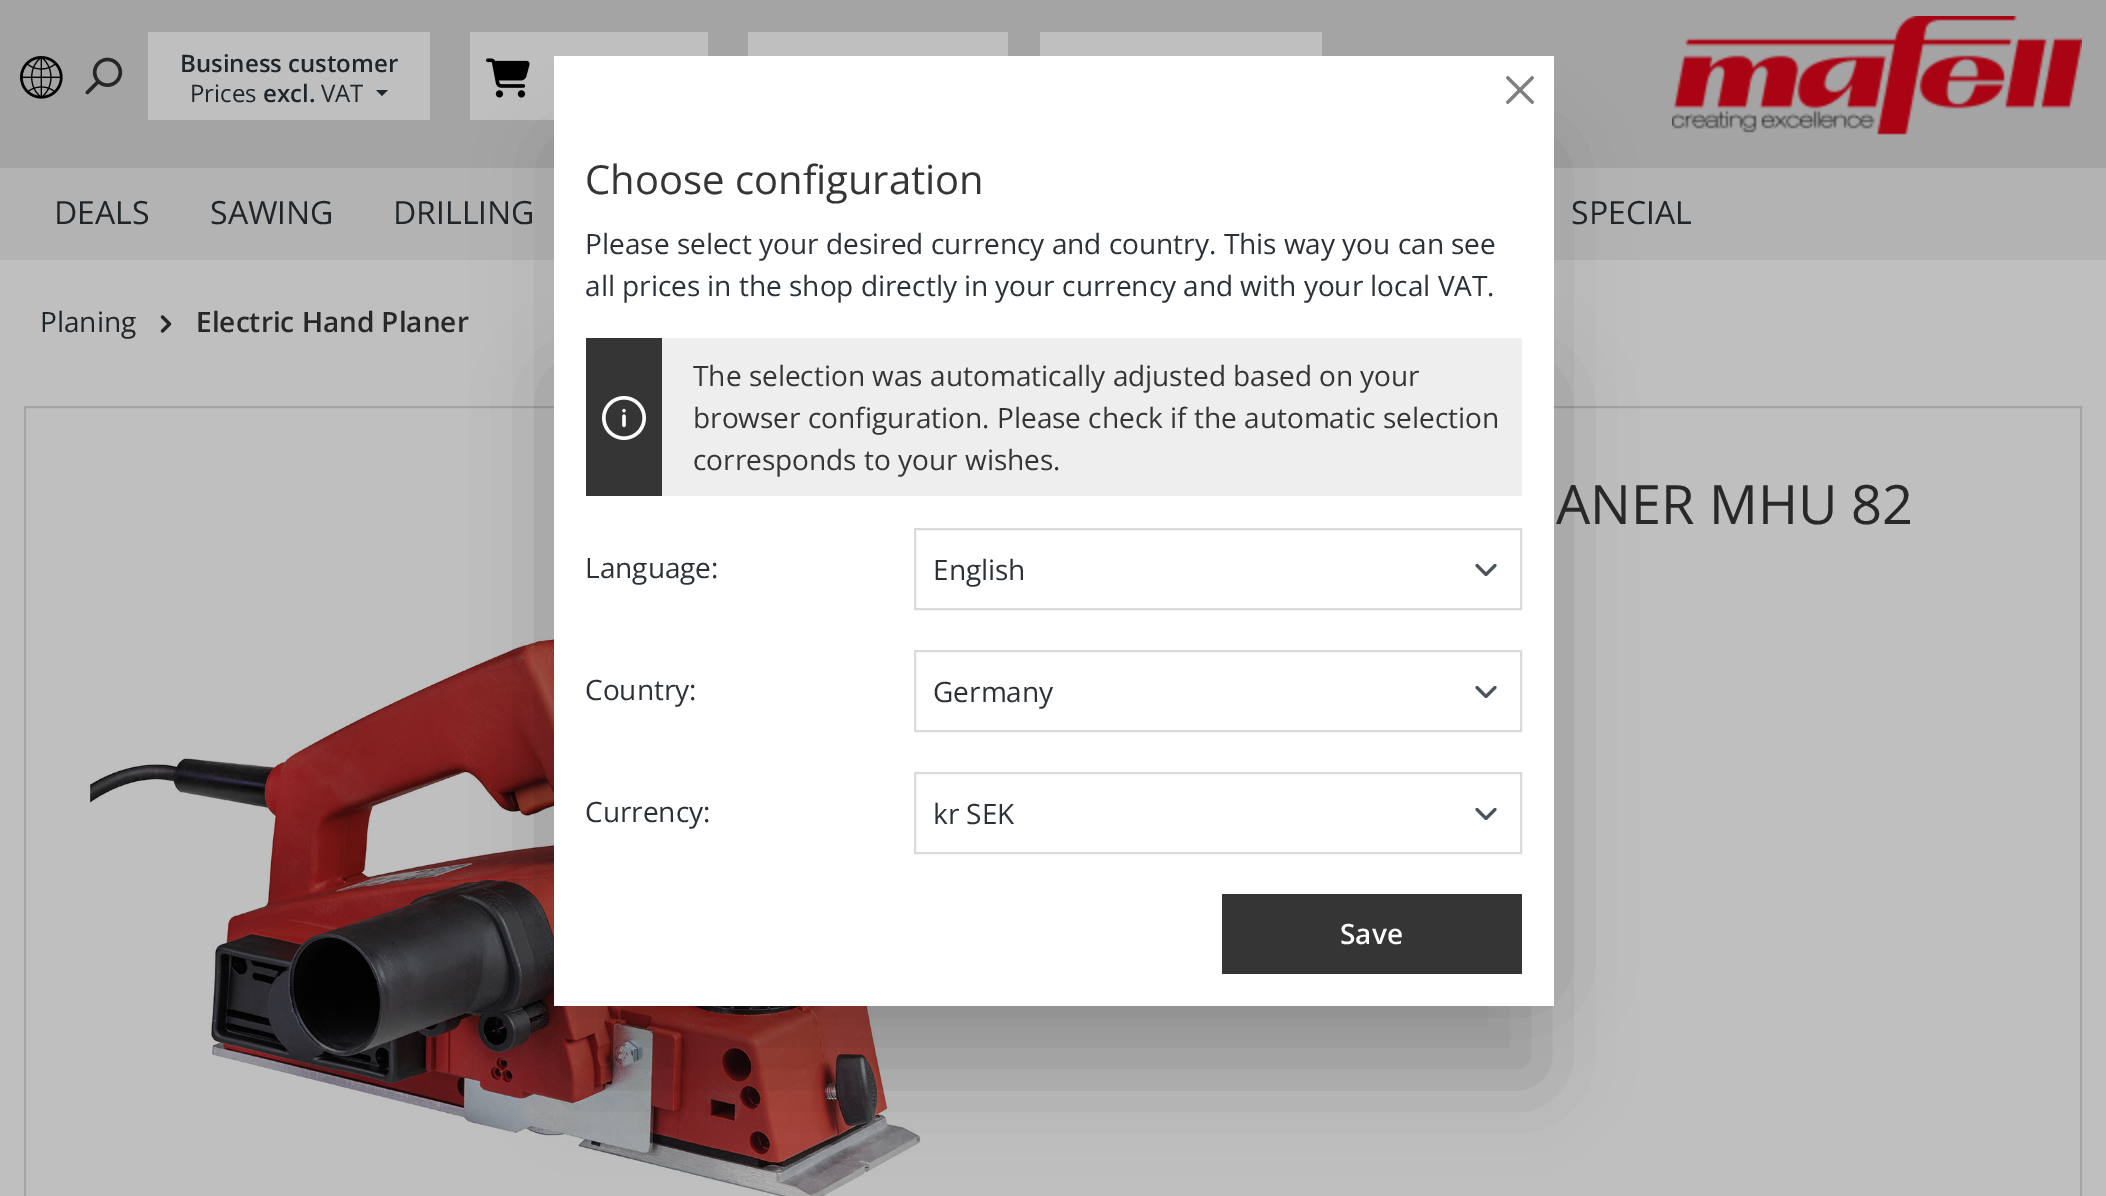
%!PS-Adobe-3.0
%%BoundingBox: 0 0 2106 1196
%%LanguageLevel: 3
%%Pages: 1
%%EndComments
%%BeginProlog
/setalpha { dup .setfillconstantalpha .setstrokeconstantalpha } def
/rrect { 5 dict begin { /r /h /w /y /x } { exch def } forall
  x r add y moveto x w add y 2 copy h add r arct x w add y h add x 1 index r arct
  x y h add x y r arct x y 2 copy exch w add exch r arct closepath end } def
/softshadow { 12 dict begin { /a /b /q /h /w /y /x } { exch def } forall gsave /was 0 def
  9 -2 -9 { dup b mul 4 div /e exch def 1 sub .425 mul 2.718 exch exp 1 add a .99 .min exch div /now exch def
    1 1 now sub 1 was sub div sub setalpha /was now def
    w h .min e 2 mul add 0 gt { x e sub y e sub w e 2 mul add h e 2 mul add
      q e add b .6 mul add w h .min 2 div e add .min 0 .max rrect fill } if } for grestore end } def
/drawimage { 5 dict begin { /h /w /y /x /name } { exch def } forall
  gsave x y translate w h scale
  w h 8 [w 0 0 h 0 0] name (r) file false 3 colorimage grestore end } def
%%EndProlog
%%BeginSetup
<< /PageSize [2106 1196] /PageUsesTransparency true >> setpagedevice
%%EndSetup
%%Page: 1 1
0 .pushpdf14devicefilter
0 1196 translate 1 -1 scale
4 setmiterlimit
0.749 setgray
0 0 2106 1196 rectfill
0.643 setgray
0 0 2106 168 rectfill
0.749 setgray
748 32 260 24 rectfill
1040 32 282 24 rectfill
(images/1.raw) 1672 16 410 119 drawimage
(images/2.raw) 20 56 43 43 drawimage
(images/3.raw) 85 57 38 38 drawimage
148 32 282 88 rectfill
0.125 0.145 0.161 setrgbcolor
newpath 376 90 moveto 388 90 lineto 382 96 lineto closepath fill
0.749 setgray
470 32 238 88 rectfill
(images/4.raw) 486 58 44 40 drawimage
0.702 setgray
0 168 2106 92 rectfill
0.643 setgray
2 setlinewidth
25 407 2056 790 rectstroke
(images/8.raw) 90 636 831 560 drawimage
0 setgray
566 154 976 926 0 43 0.2 softshadow
566 382 976 604 0 43 0.2 softshadow
1 setgray
554 56 1000 950 rectfill
(images/5.raw) 1506 76 28 28 drawimage
0.208 setgray
586 338 76 158 rectfill
(images/6.raw) 602 396 44 44 drawimage
0.933 setgray
662 338 860 158 rectfill
0.29 0.329 0.357 setrgbcolor
3 setlinewidth
1 setlinecap
1 setlinejoin
newpath 1477 565.5 moveto 1486 574.5 lineto 1495 565.5 lineto stroke
0.855 setgray
2 setlinewidth
0 setlinecap
0 setlinejoin
915 529 606 80 rectstroke
0.29 0.329 0.357 setrgbcolor
3 setlinewidth
1 setlinecap
1 setlinejoin
newpath 1477 687.5 moveto 1486 696.5 lineto 1495 687.5 lineto stroke
0.855 setgray
2 setlinewidth
0 setlinecap
0 setlinejoin
915 651 606 80 rectstroke
0.29 0.329 0.357 setrgbcolor
3 setlinewidth
1 setlinecap
1 setlinejoin
newpath 1477 809.5 moveto 1486 818.5 lineto 1495 809.5 lineto stroke
0.855 setgray
2 setlinewidth
0 setlinecap
0 setlinejoin
915 773 606 80 rectstroke
0.208 setgray
1222 894 300 80 rectfill
(images/7.raw) 160 315 12 18 drawimage
/OpenSans-SemiBold [24 0 0 -24 0 0] selectfont
0.125 0.145 0.161 setrgbcolor
180 72 moveto (Business customer) show
/OpenSans-Regular [24 0 0 -24 0 0] selectfont
190 102 moveto (Prices) show
/OpenSans-SemiBold [24 0 0 -24 0 0] selectfont
263 102 moveto (excl.) show
/OpenSans-Regular [24 0 0 -24 0 0] selectfont
321 102 moveto (VAT) show
/OpenSans-Regular [40 0 0 -40 0 0] selectfont
0.208 setgray
585 194 moveto (Choose configuration) show
/OpenSans-Regular [28 0 0 -28 0 0] selectfont
0.169 0.192 0.212 setrgbcolor
585 254 moveto (Please select your desired currency and country. This way you can see) show
585 296 moveto (all prices in the shop directly in your currency and with your local VAT.) show
0.208 setgray
693 386 moveto (The selection was automatically adjusted based on your) show
693 428 moveto (browser configuration. Please check if the automatic selection) show
693 470 moveto (corresponds to your wishes.) show
0.169 0.192 0.212 setrgbcolor
585 578 moveto (Language:) show
933 580 moveto (English) show
585 700 moveto (Country:) show
933 702 moveto (Germany) show
585 822 moveto (Currency:) show
933 824 moveto (kr SEK) show
/OpenSans-SemiBold [28 0 0 -28 0 0] selectfont
1 setgray
1340 944 moveto (Save) show
/OpenSans-Regular [32 0 0 -32 0 0] selectfont
0.125 0.145 0.161 setrgbcolor
54 224 moveto (DEALS) show
210 224 moveto (SAWING) show
393 224 moveto (DRILLING) show
1571 224 moveto (SPECIAL) show
/OpenSans-Regular [28 0 0 -28 0 0] selectfont
40 332 moveto (Planing) show
/OpenSans-SemiBold [28 0 0 -28 0 0] selectfont
0.157 setgray
196 332 moveto (Electric Hand Planer) show
/OpenSans-Regular [54.25 0 0 -54.25 0 0] selectfont
1556 524 moveto (ANER MHU 82) show
.poppdf14devicefilter showpage
%%EOF
